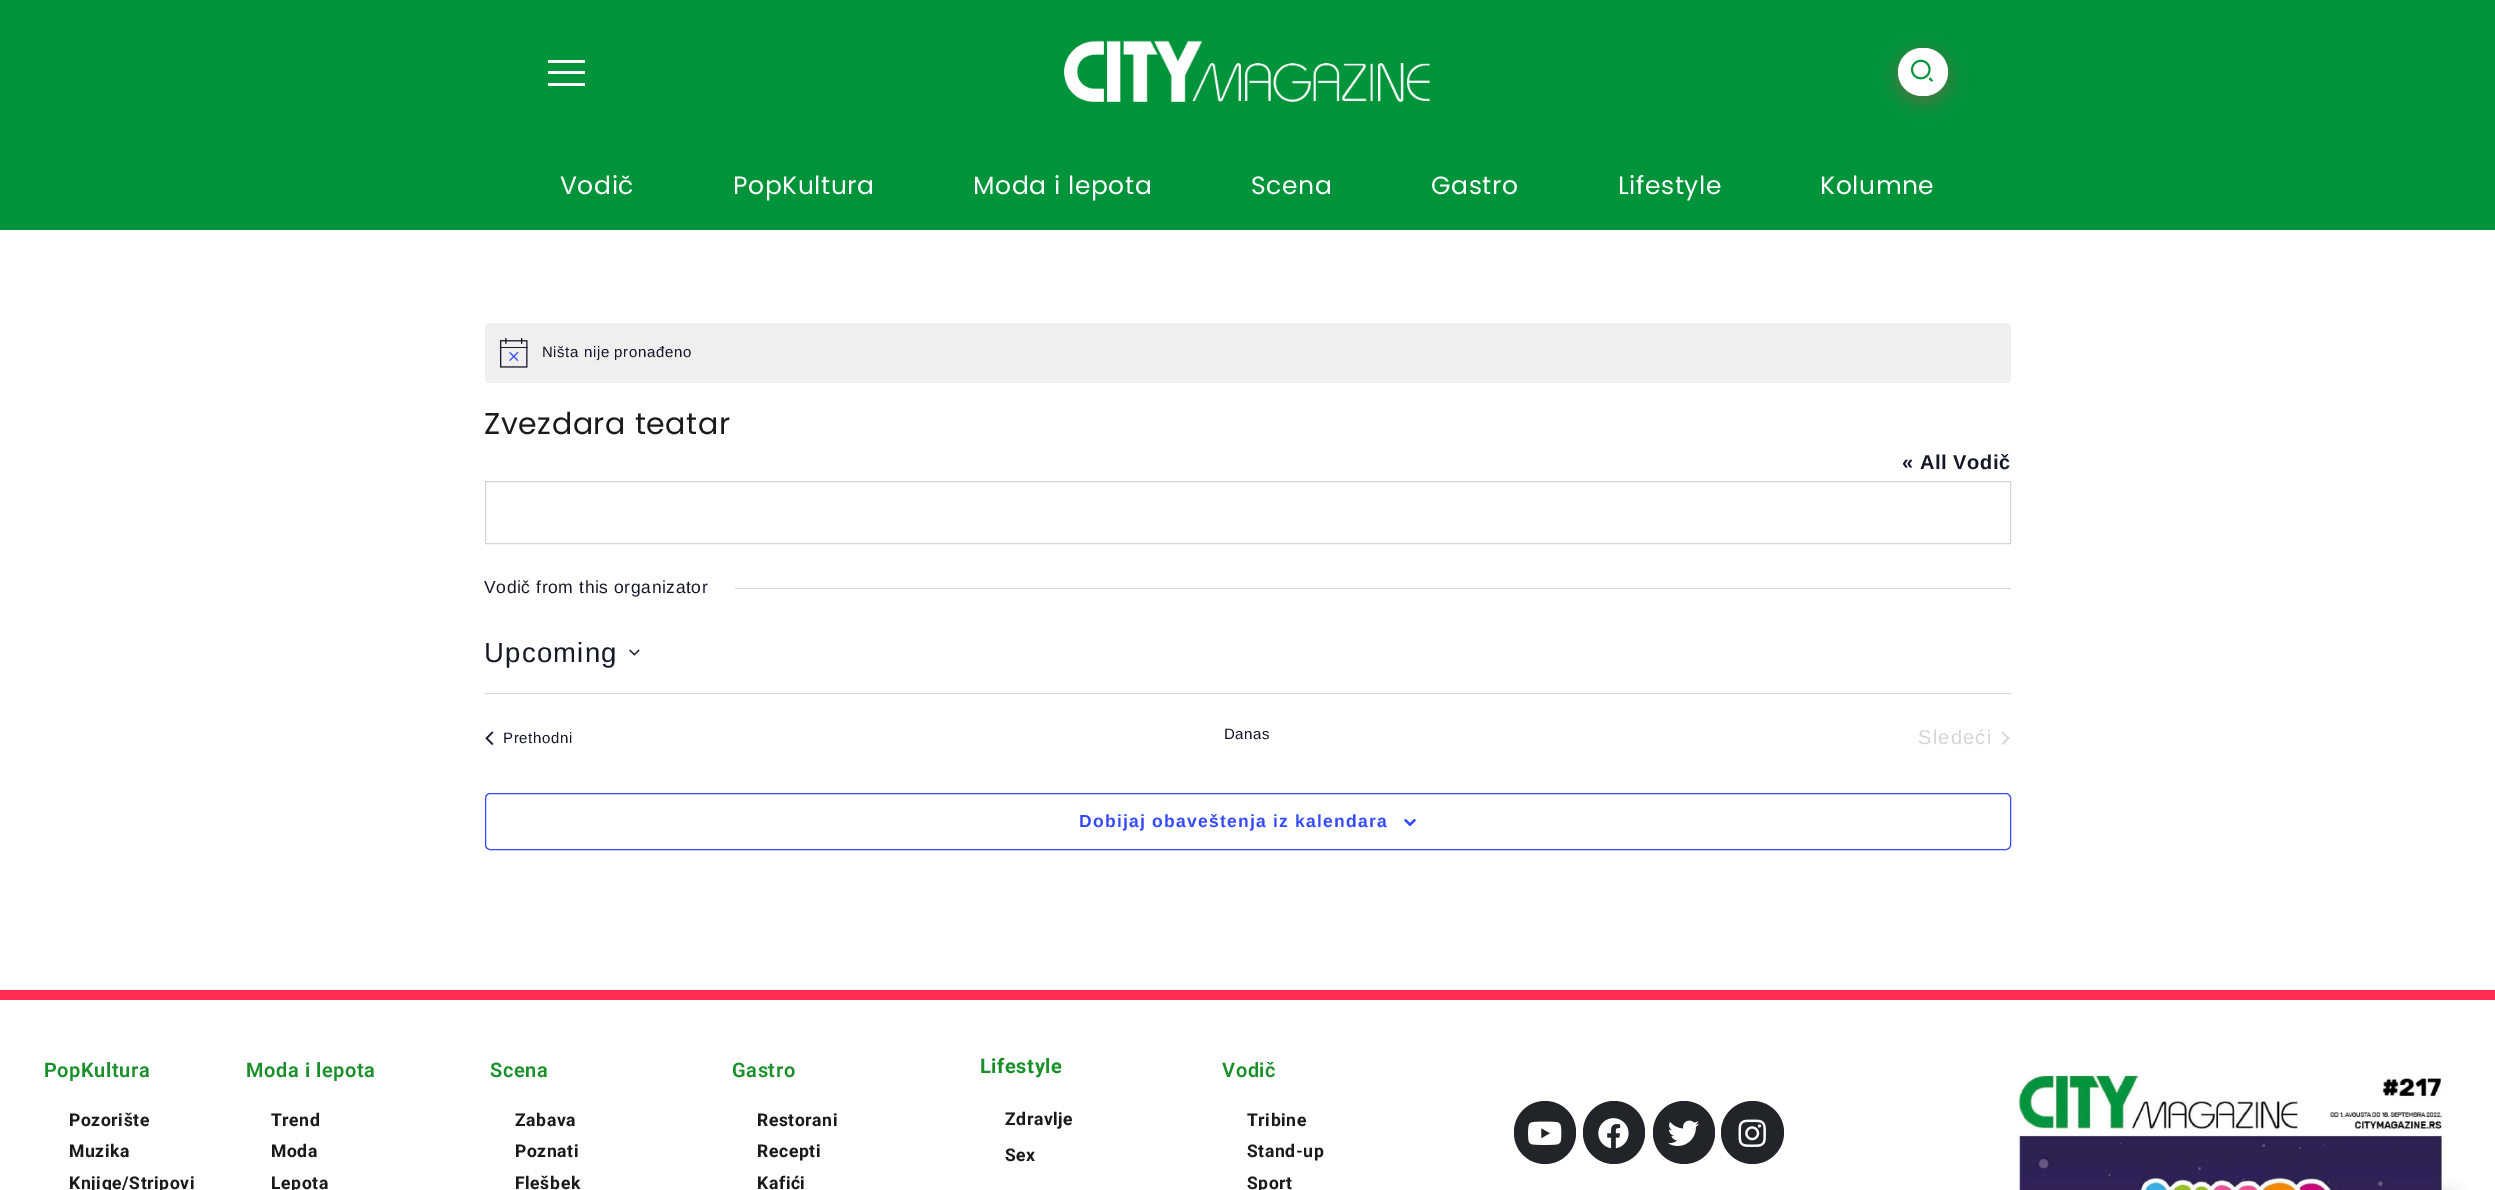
%!PS-Adobe-3.0
%%BoundingBox: 0 0 2495 1190
%%LanguageLevel: 3
%%Pages: 1
%%EndComments
%%BeginProlog
/setalpha { dup .setfillconstantalpha .setstrokeconstantalpha } def
/rrect { 5 dict begin { /r /h /w /y /x } { exch def } forall
  x r add y moveto x w add y 2 copy h add r arct x w add y h add x 1 index r arct
  x y h add x y r arct x y 2 copy exch w add exch r arct closepath end } def
/softshadow { 12 dict begin { /a /b /q /h /w /y /x } { exch def } forall gsave /was 0 def
  9 -2 -9 { dup b mul 4 div /e exch def 1 sub .425 mul 2.718 exch exp 1 add a .99 .min exch div /now exch def
    1 1 now sub 1 was sub div sub setalpha /was now def
    w h .min e 2 mul add 0 gt { x e sub y e sub w e 2 mul add h e 2 mul add
      q e add b .6 mul add w h .min 2 div e add .min 0 .max rrect fill } if } for grestore end } def
/drawimage { 5 dict begin { /h /w /y /x /name } { exch def } forall
  gsave x y translate w h scale
  w h 8 [w 0 0 h 0 0] name (r) file false 3 colorimage grestore end } def
%%EndProlog
%%BeginSetup
<< /PageSize [2495 1190] /PageUsesTransparency true >> setpagedevice
%%EndSetup
%%Page: 1 1
0 .pushpdf14devicefilter
0 1190 translate 1 -1 scale
4 setmiterlimit
1 setgray
0 0 2495 1190 rectfill
0 0.58 0.227 setrgbcolor
0 0 2495 230 rectfill
1 setgray
548 60 37 3 rectfill
548 71 37 3 rectfill
548 83 37 3 rectfill
(images/1.raw) 1064 40 366 62 drawimage
1 0.173 0.329 setrgbcolor
1898 53 50 48 24 9.5 0.33 softshadow
1 setgray
1898 48 50 48 24 rrect fill
(images/2.raw) 1910 59 24 23 drawimage
0.937 0.937 0.941 setrgbcolor
485 323 1526 60 5 rrect fill
(images/3.raw) 500 338 28 30 drawimage
0.835 setgray
485.5 481.5 1525 62 rectstroke
735 588 1276 1 rectfill
(images/4.raw) 629 649 11 7 drawimage
485 693 1526 1 rectfill
(images/5.raw) 485 731 9 14 drawimage
(images/6.raw) 2001 731 9 14 drawimage
0.2 0.29 1 setrgbcolor
485.5 793.5 1525 56 4.5 rrect stroke
(images/7.raw) 1404 819 12 7 drawimage
1 0.173 0.329 setrgbcolor
0 990 2495 10 rectfill
0.129 0.145 0.161 setrgbcolor
1514 1101 62 63 31 rrect fill
(images/8.raw) 1528 1121 34 24 drawimage
1583 1101 62 63 31 rrect fill
(images/9.raw) 1598 1118 31 31 drawimage
1653 1101 62 63 31 rrect fill
(images/10.raw) 1668 1120 31 26 drawimage
newpath 1752.5 1132.5 31.5 0 360 arc closepath fill
(images/11.raw) 1738 1119 28 28 drawimage
(images/12.raw) 2017 1073 426 117 drawimage
0.157 0.161 0.184 setrgbcolor
2401 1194 57 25 6 7.5 0.24 softshadow
/Poppins-Regular [25 0 0 -25 0 0] selectfont
1 setgray
560 194 moveto 0.6 0 (Vodič) ashow
733 194 moveto 0.6 0 (PopKultura) ashow
973 194 moveto 0.6 0 (Moda i lepota) ashow
1251 194 moveto 0.6 0 (Scena) ashow
1431 194 moveto 0.6 0 (Gastro) ashow
1618 194 moveto 0.6 0 (Lifestyle) ashow
1820 194 moveto 0.6 0 (Kolumne) ashow
/LiberationSans-Regular [15 0 0 -15 0 0] selectfont
0.078 0.094 0.153 setrgbcolor
542 357 moveto 0.6 0 (Ništa nije pronađeno) ashow
/Poppins-Regular [30 0 0 -30 0 0] selectfont
0.098 0.102 0.106 setrgbcolor
484 434 moveto 0.6 0 (Zvezdara teatar) ashow
/LiberationSans-Bold [20 0 0 -20 0 0] selectfont
0.078 0.094 0.153 setrgbcolor
1902 469 moveto 0.6 0 (« All Vodič) ashow
/LiberationSans-Regular [17.5 0 0 -17.5 0 0] selectfont
484 593 moveto 0.6 0 (Vodič from this organizator) ashow
/LiberationSans-Regular [27.5 0 0 -27.5 0 0] selectfont
484 662 moveto 1.25 0 (Upcoming) ashow
/LiberationSans-Regular [15 0 0 -15 0 0] selectfont
503 743 moveto 0.6 0 (Prethodni) ashow
1224 739 moveto 0.6 0 (Danas) ashow
/LiberationSans-Regular [20 0 0 -20 0 0] selectfont
0.835 setgray
1918 744 moveto 1.25 0 (Sledeći) ashow
/LiberationSans-Bold [17.5 0 0 -17.5 0 0] selectfont
0.2 0.29 1 setrgbcolor
1079 827 moveto 1.25 0 (Dobijaj obaveštenja iz kalendara) ashow
/Roboto-SemiBold [20 0 0 -20 0 0] selectfont
0.094 0.561 0.161 setrgbcolor
44 1077 moveto 0.6 0 (PopKultura) ashow
/Roboto-Bold [17.5 0 0 -17.5 0 0] selectfont
0.098 0.102 0.106 setrgbcolor
69 1126 moveto 0.6 0 (Pozorište) ashow
69 1157 moveto 0.6 0 (Muzika) ashow
69 1189 moveto 0.6 0 (Knjige/Stripovi) ashow
/Roboto-SemiBold [20 0 0 -20 0 0] selectfont
0.094 0.561 0.161 setrgbcolor
246 1077 moveto 0.6 0 (Moda i lepota) ashow
/Roboto-Bold [17.5 0 0 -17.5 0 0] selectfont
0.098 0.102 0.106 setrgbcolor
271 1126 moveto 0.6 0 (Trend) ashow
271 1157 moveto 0.6 0 (Moda) ashow
271 1189 moveto 0.6 0 (Lepota) ashow
/Roboto-SemiBold [20 0 0 -20 0 0] selectfont
0.094 0.561 0.161 setrgbcolor
490 1077 moveto 0.6 0 (Scena) ashow
/Roboto-Bold [17.5 0 0 -17.5 0 0] selectfont
0.098 0.102 0.106 setrgbcolor
515 1126 moveto 0.6 0 (Zabava) ashow
515 1157 moveto 0.6 0 (Poznati) ashow
515 1189 moveto 0.6 0 (Flešbek) ashow
/Roboto-SemiBold [20 0 0 -20 0 0] selectfont
0.094 0.561 0.161 setrgbcolor
732 1077 moveto 0.6 0 (Gastro) ashow
/Roboto-Bold [17.5 0 0 -17.5 0 0] selectfont
0.098 0.102 0.106 setrgbcolor
757 1126 moveto 0.6 0 (Restorani) ashow
757 1157 moveto 0.6 0 (Recepti) ashow
757 1189 moveto 0.6 0 (Kafići) ashow
/Roboto-Bold [20 0 0 -20 0 0] selectfont
0.094 0.561 0.161 setrgbcolor
980 1073 moveto 0.6 0 (Lifestyle) ashow
/Roboto-Bold [17.5 0 0 -17.5 0 0] selectfont
0.098 0.102 0.106 setrgbcolor
1005 1125 moveto 0.6 0 (Zdravlje) ashow
1005 1161 moveto 0.6 0 (Sex) ashow
/Roboto-SemiBold [20 0 0 -20 0 0] selectfont
0.094 0.561 0.161 setrgbcolor
1222 1077 moveto 0.6 0 (Vodič) ashow
/Roboto-Bold [17.5 0 0 -17.5 0 0] selectfont
0.098 0.102 0.106 setrgbcolor
1247 1126 moveto 0.6 0 (Tribine) ashow
1247 1157 moveto 0.6 0 (Stand-up) ashow
1247 1189 moveto 0.6 0 (Sport) ashow
.poppdf14devicefilter showpage
%%EOF
